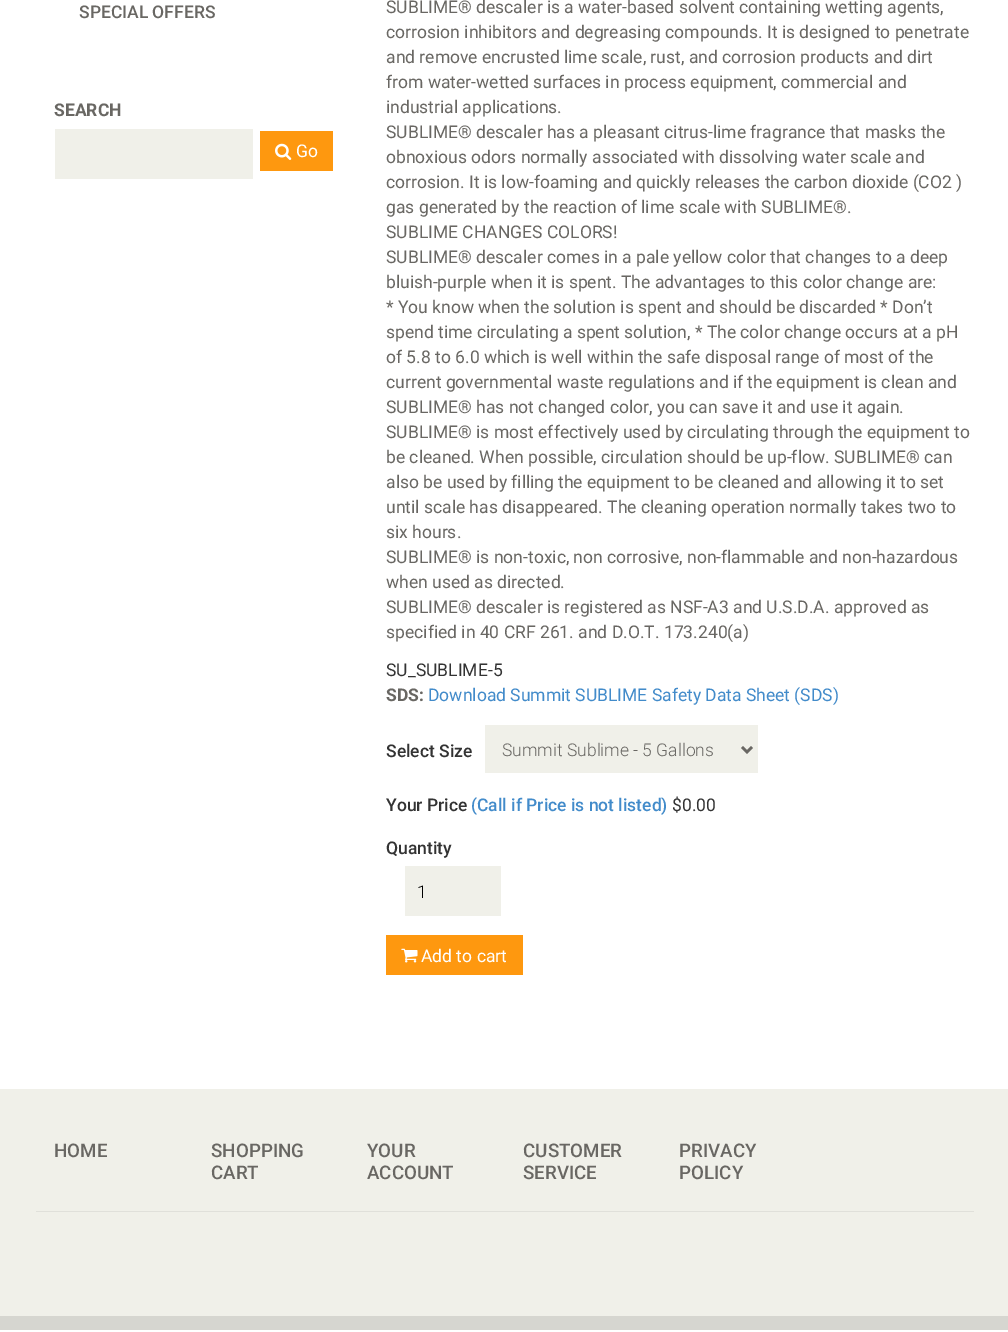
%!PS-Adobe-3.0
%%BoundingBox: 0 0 1008 1332
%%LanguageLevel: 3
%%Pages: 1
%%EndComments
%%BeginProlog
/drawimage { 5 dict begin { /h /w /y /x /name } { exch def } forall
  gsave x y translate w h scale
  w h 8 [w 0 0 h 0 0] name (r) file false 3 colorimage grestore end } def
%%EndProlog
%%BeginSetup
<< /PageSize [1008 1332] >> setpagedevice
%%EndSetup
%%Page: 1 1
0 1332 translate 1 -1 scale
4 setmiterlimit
1 setgray
0 0 1008 1332 rectfill
0.941 0.941 0.914 setrgbcolor
55 129 198 50 rectfill
0.996 0.596 0.059 setrgbcolor
260 131 73 40 rectfill
(images/1.raw) 275 143 17 17 drawimage
0.941 0.941 0.914 setrgbcolor
485 725 273 48 rectfill
0.412 0.404 0.388 setrgbcolor
2.5 setlinewidth
newpath 742 747 moveto 747 752 lineto 752 747 lineto stroke
0.941 0.941 0.914 setrgbcolor
405 866 96 50 rectfill
0.996 0.596 0.059 setrgbcolor
386 935 137 40 rectfill
(images/2.raw) 401 948 17 15 drawimage
0.941 0.941 0.914 setrgbcolor
0 1089 1008 227 rectfill
0.878 0.878 0.855 setrgbcolor
36 1211 938 1 rectfill
0.839 0.839 0.816 setrgbcolor
0 1316 1008 14 rectfill
/Roboto-Medium [17.5 0 0 -17.5 0 0] selectfont
0.412 0.404 0.388 setrgbcolor
79 18 moveto (SPECIAL OFFERS) show
/Roboto-Bold [17.5 0 0 -17.5 0 0] selectfont
54 116 moveto (SEARCH) show
/Roboto-Regular [17.5 0 0 -17.5 0 0] selectfont
1 setgray
296 157 moveto (Go) show
0.412 0.404 0.388 setrgbcolor
386 13 moveto (SUBLIME® descaler is a water-based solvent containing wetting agents,) show
386 38 moveto (corrosion inhibitors and degreasing compounds. It is designed to penetrate) show
386 63 moveto (and remove encrusted lime scale, rust, and corrosion products and dirt) show
386 88 moveto (from water-wetted surfaces in process equipment, commercial and) show
386 113 moveto (industrial applications.) show
386 138 moveto (SUBLIME® descaler has a pleasant citrus-lime fragrance that masks the) show
386 163 moveto (obnoxious odors normally associated with dissolving water scale and) show
386 188 moveto (corrosion. It is low-foaming and quickly releases the carbon dioxide \(CO2 \)) show
386 213 moveto (gas generated by the reaction of lime scale with SUBLIME®.) show
386 238 moveto (SUBLIME CHANGES COLORS!) show
386 263 moveto (SUBLIME® descaler comes in a pale yellow color that changes to a deep) show
386 288 moveto (bluish-purple when it is spent. The advantages to this color change are:) show
386 313 moveto (* You know when the solution is spent and should be discarded * Don’t) show
386 338 moveto (spend time circulating a spent solution, * The color change occurs at a pH) show
386 363 moveto (of 5.8 to 6.0 which is well within the safe disposal range of most of the) show
386 388 moveto (current governmental waste regulations and if the equipment is clean and) show
386 413 moveto (SUBLIME® has not changed color, you can save it and use it again.) show
386 438 moveto (SUBLIME® is most effectively used by circulating through the equipment to) show
386 463 moveto (be cleaned. When possible, circulation should be up-flow. SUBLIME® can) show
386 488 moveto (also be used by filling the equipment to be cleaned and allowing it to set) show
386 513 moveto (until scale has disappeared. The cleaning operation normally takes two to) show
386 538 moveto (six hours.) show
386 563 moveto (SUBLIME® is non-toxic, non corrosive, non-flammable and non-hazardous) show
386 588 moveto (when used as directed.) show
386 613 moveto (SUBLIME® descaler is registered as NSF-A3 and U.S.D.A. approved as) show
386 638 moveto (specified in 40 CRF 261. and D.O.T. 173.240\(a\)) show
0.2 setgray
386 676 moveto (SU_SUBLIME-5) show
/Roboto-Bold [17.5 0 0 -17.5 0 0] selectfont
0.412 0.404 0.388 setrgbcolor
386 701 moveto (SDS:) show
/Roboto-Regular [17.5 0 0 -17.5 0 0] selectfont
0.259 0.545 0.792 setrgbcolor
428 701 moveto (Download Summit SUBLIME Safety Data Sheet \(SDS\)) show
/Roboto-Medium [17.5 0 0 -17.5 0 0] selectfont
0.2 setgray
386 757 moveto (Select Size) show
/Roboto-Light [17.5 0 0 -17.5 0 0] selectfont
0.412 0.404 0.388 setrgbcolor
502 756 moveto (Summit Sublime - 5 Gallons) show
/Roboto-Medium [17.5 0 0 -17.5 0 0] selectfont
0.2 setgray
386 811 moveto (Your Price) show
0.259 0.545 0.792 setrgbcolor
471 811 moveto (\(Call if Price is not listed\)) show
/Roboto-Regular [17.5 0 0 -17.5 0 0] selectfont
0.2 setgray
672 811 moveto ($0.00) show
/Roboto-Medium [17.5 0 0 -17.5 0 0] selectfont
386 854 moveto (Quantity) show
/Roboto-Light [17.5 0 0 -17.5 0 0] selectfont
0 setgray
417 898 moveto (1) show
/Roboto-Regular [17.5 0 0 -17.5 0 0] selectfont
1 setgray
421 962 moveto (Add to cart) show
/Roboto-Medium [18.75 0 0 -18.75 0 0] selectfont
0.412 0.404 0.388 setrgbcolor
54 1157 moveto (HOME) show
211 1157 moveto (SHOPPING) show
211 1179 moveto (CART) show
367 1157 moveto (YOUR) show
367 1179 moveto (ACCOUNT) show
523 1157 moveto (CUSTOMER) show
523 1179 moveto (SERVICE) show
679 1157 moveto (PRIVACY) show
679 1179 moveto (POLICY) show
showpage
%%EOF
